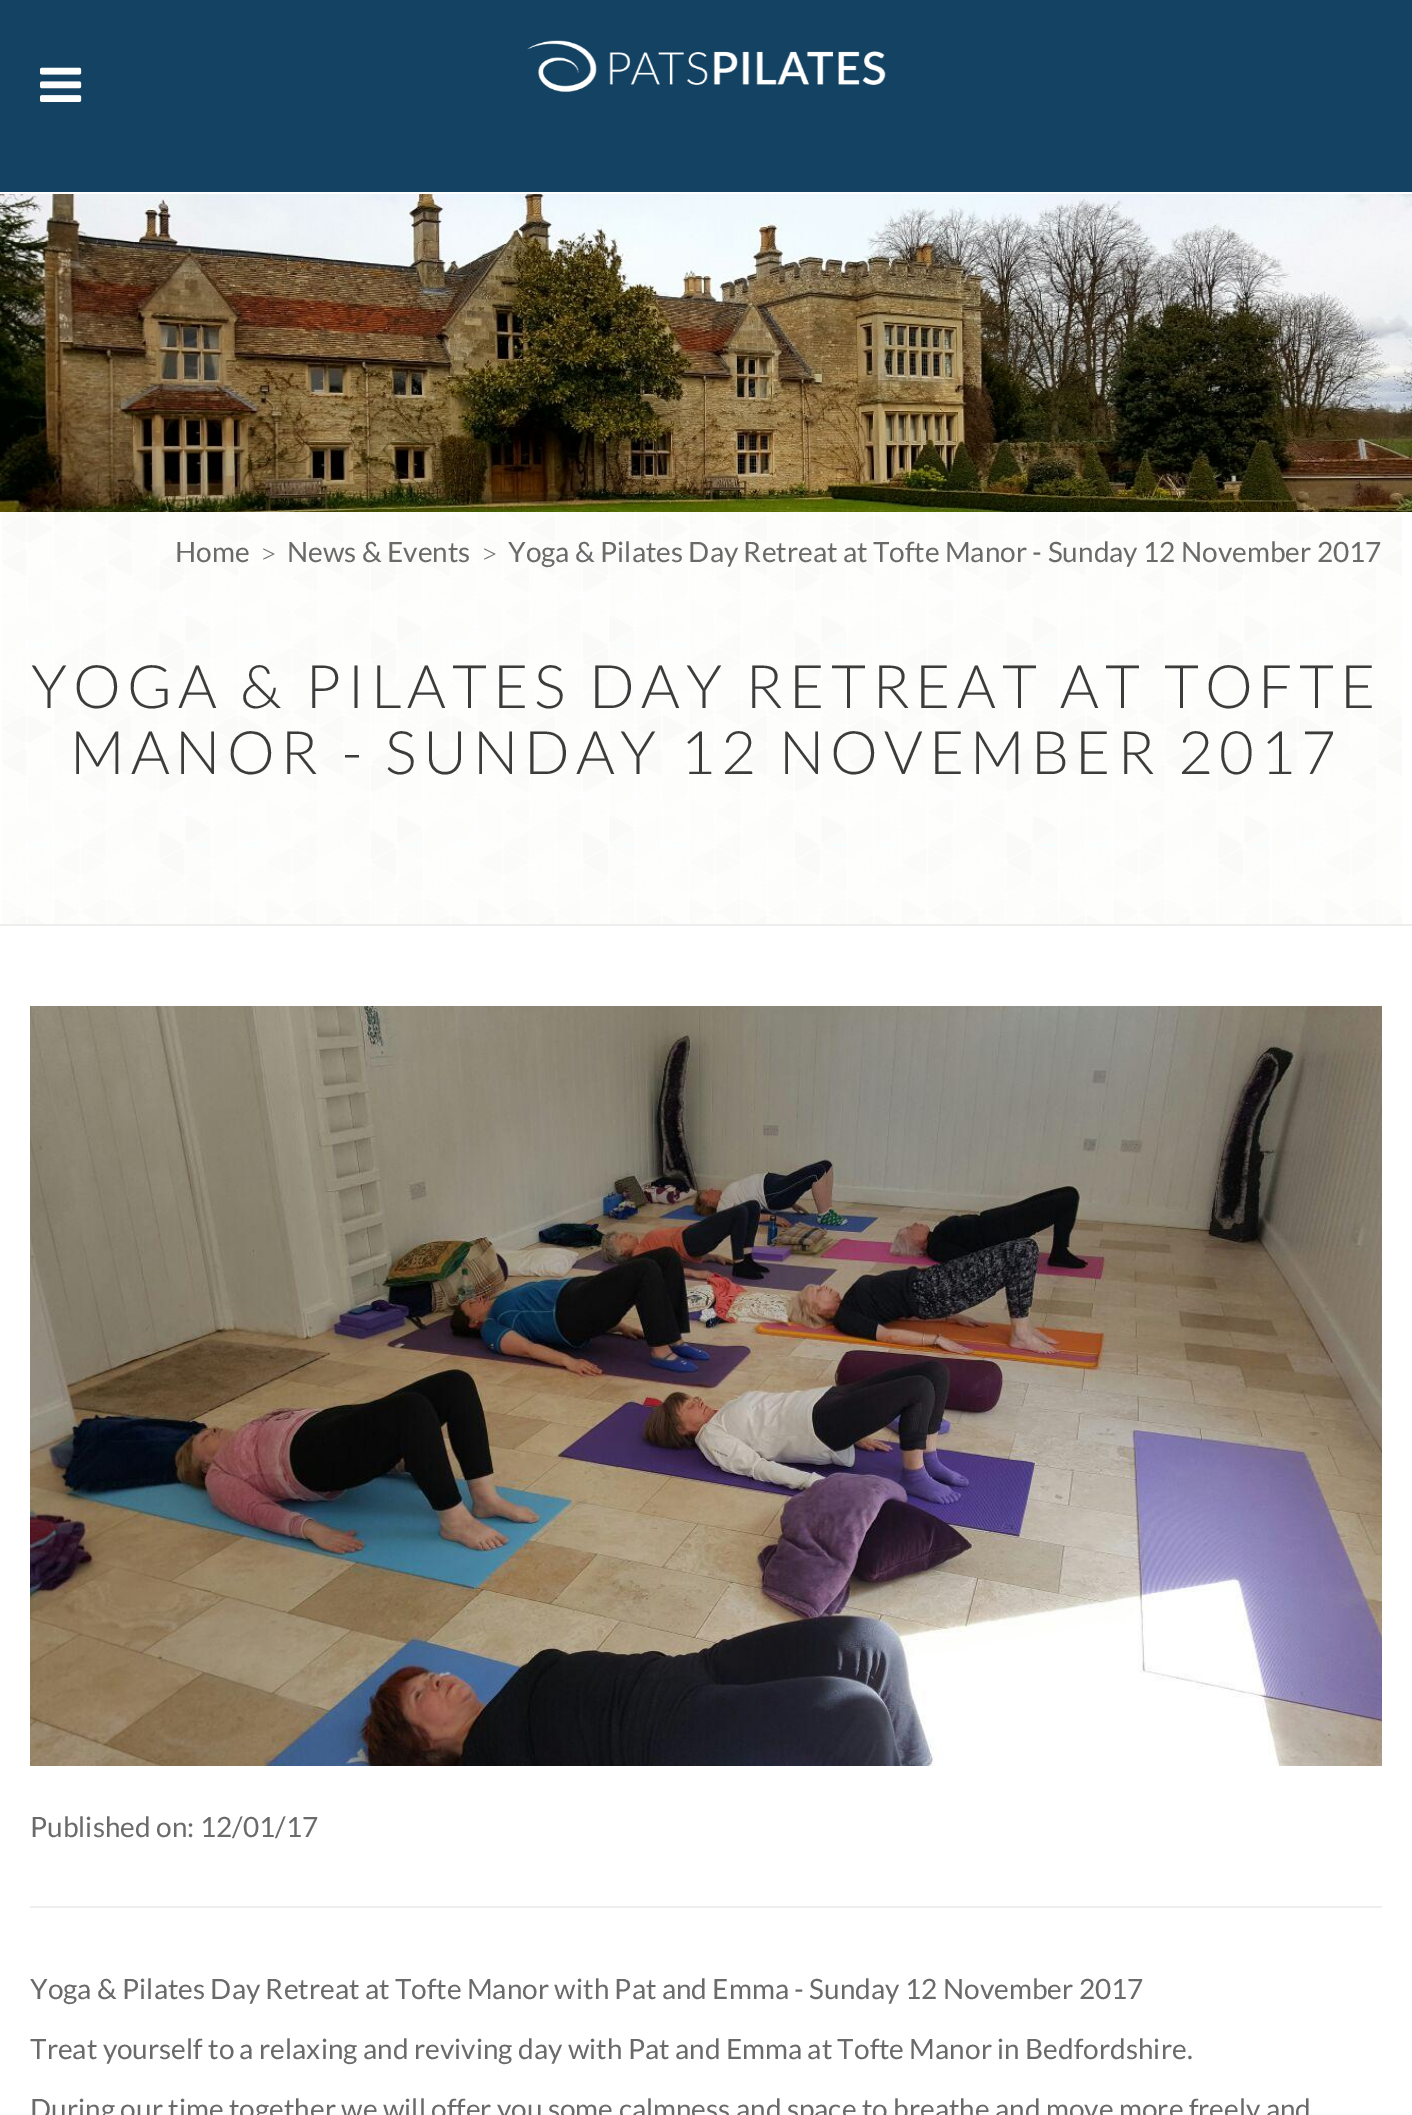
%!PS-Adobe-3.0
%%BoundingBox: 0 0 1412 2115
%%LanguageLevel: 3
%%Pages: 1
%%EndComments
%%BeginProlog
/drawimage { 5 dict begin { /h /w /y /x /name } { exch def } forall
  gsave x y translate w h scale
  w h 8 [w 0 0 h 0 0] name (r) file false 3 colorimage grestore end } def
%%EndProlog
%%BeginSetup
<< /PageSize [1412 2115] >> setpagedevice
%%EndSetup
%%Page: 1 1
0 2115 translate 1 -1 scale
4 setmiterlimit
1 setgray
0 0 1412 2115 rectfill
0.078 0.259 0.384 setrgbcolor
0 0 1412 192 rectfill
(images/1.raw) 40 67 42 35 drawimage
(images/2.raw) 527 40 359 52 drawimage
(images/3.raw) 0 194 1412 318 drawimage
(images/4.raw) 2 512 1400 412 drawimage
0.933 setgray
0 924 1412 2 rectfill
(images/5.raw) 30 1006 1352 760 drawimage
30 1906 1352 2 rectfill
/Lato-Regular [28 0 0 -28 0 0] selectfont
0.416 setgray
175 562 moveto (Home) show
/LiberationSerif-Regular [24 0 0 -24 0 0] selectfont
262 562 moveto (>) show
/Lato-Regular [28 0 0 -28 0 0] selectfont
287 562 moveto (News & Events) show
/LiberationSerif-Regular [24 0 0 -24 0 0] selectfont
483 562 moveto (>) show
/Lato-Regular [28 0 0 -28 0 0] selectfont
508 562 moveto (Yoga & Pilates Day Retreat at Tofte Manor - Sunday 12 November 2017) show
/Lato-Light [60 0 0 -60 0 0] selectfont
0.235 setgray
31 708 moveto 6 0 (YOGA & PILATES DAY RETREAT AT TOFTE) ashow
70 774 moveto 6 0 (MANOR - SUNDAY 12 NOVEMBER 2017) ashow
/Lato-Regular [28 0 0 -28 0 0] selectfont
0.416 setgray
30 1837 moveto (Published on: 12/01/17) show
30 1999 moveto (Yoga & Pilates Day Retreat at Tofte Manor with Pat and Emma - Sunday 12 November 2017) show
30 2059 moveto (Treat yourself to a relaxing and reviving day with Pat and Emma at Tofte Manor in Bedfordshire.) show
30 2119 moveto (During our time together we will offer you some calmness and space to breathe and move more freely and) show
showpage
%%EOF
